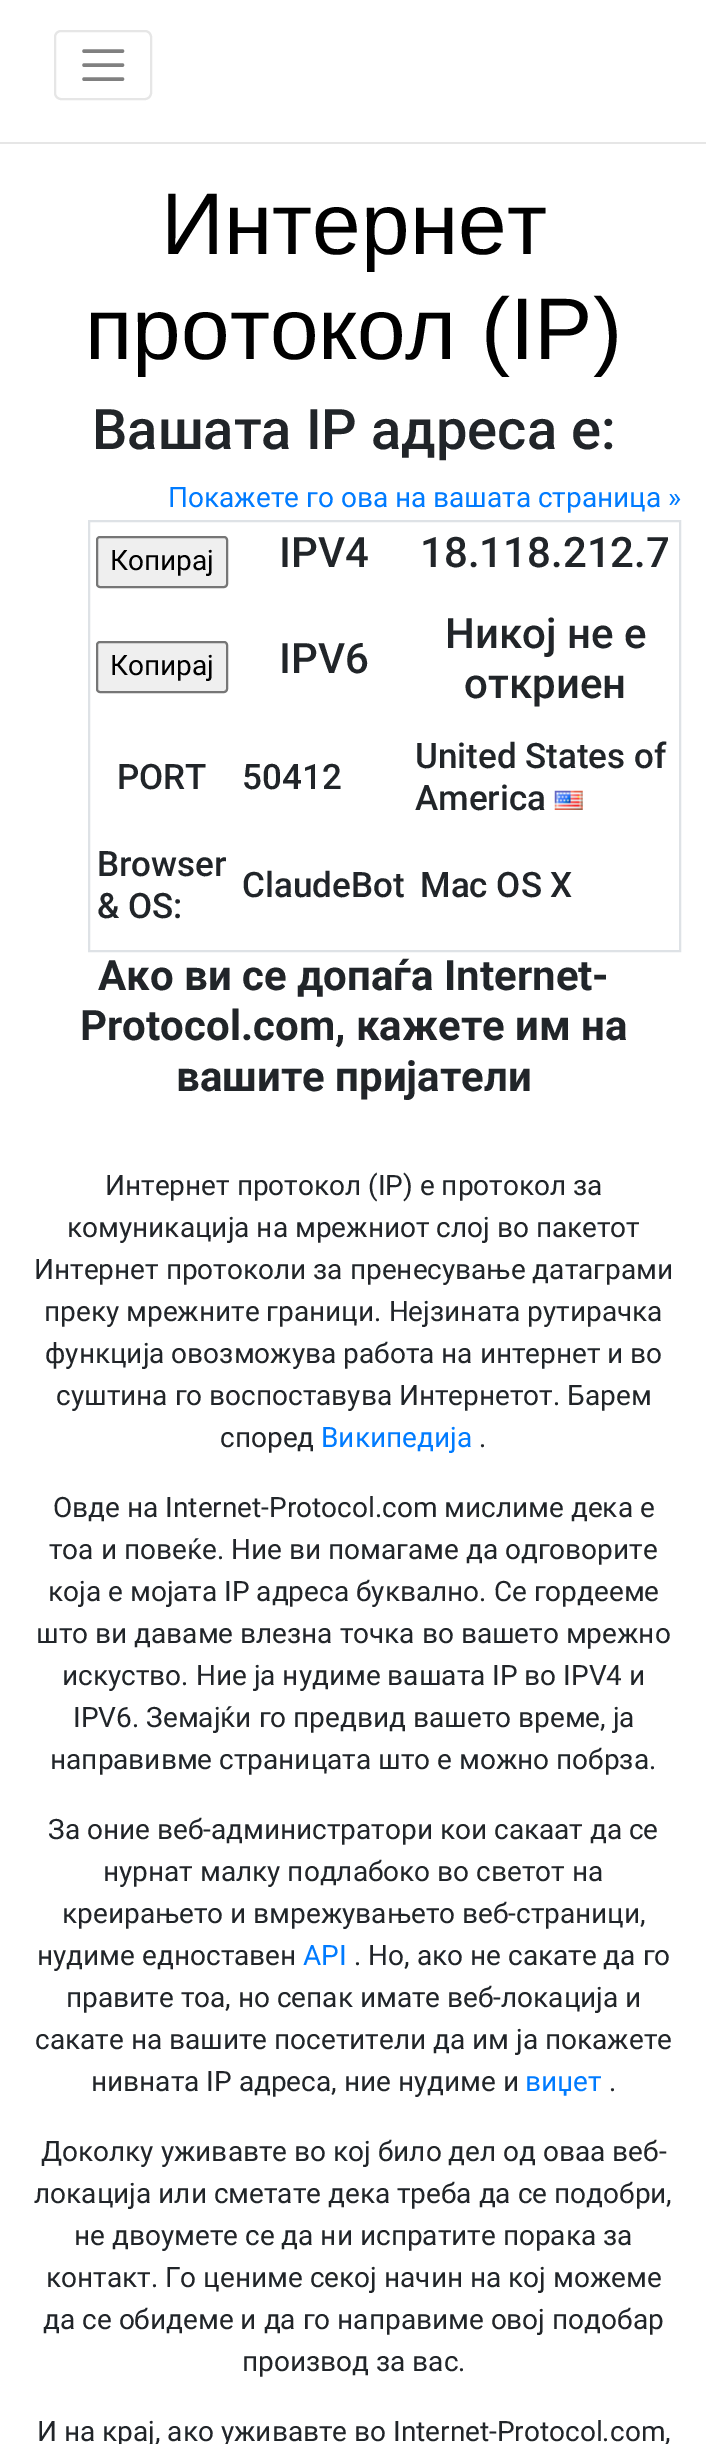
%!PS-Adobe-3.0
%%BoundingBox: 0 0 706 2444
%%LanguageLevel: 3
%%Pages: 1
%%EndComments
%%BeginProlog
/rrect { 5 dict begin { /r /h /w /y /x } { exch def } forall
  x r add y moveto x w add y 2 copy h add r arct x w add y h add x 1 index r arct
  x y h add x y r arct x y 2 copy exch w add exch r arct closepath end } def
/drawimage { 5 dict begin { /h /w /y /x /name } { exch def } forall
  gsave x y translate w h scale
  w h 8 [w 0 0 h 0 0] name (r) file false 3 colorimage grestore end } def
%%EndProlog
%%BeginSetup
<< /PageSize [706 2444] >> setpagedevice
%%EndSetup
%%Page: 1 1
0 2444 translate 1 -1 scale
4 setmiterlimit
1 setgray
0 0 706 2444 rectfill
0.902 setgray
2 setlinewidth
55 31 96 68 6 rrect stroke
0.502 setgray
3.5 setlinewidth
1 setlinecap
newpath 84 51 moveto 122.5 51 lineto 84 65 moveto 122.5 65 lineto 84 79 moveto 122.5 79 lineto stroke
0.902 setgray
0 142 706 2 rectfill
0.871 0.886 0.902 setrgbcolor
2 setlinewidth
0 setlinecap
89 521 591 430 rectstroke
0.937 setgray
97 537 130 50 3 rrect gsave fill grestore
0.463 setgray
stroke
0.937 setgray
97 642 130 50 3 rrect gsave fill grestore
0.463 setgray
stroke
(images/1.raw) 554 790 29 20 drawimage
/LiberationSans-Regular [87.5 0 0 -87.5 0 0] selectfont
0 setgray
161 254 moveto (Интернет) show
85 359 moveto (протокол \(IP\)) show
/Roboto-Medium [56 0 0 -56 0 0] selectfont
0.129 0.145 0.161 setrgbcolor
92 449 moveto (Вашата IP адреса е:) show
/Roboto-Regular [28 0 0 -28 0 0] selectfont
0 0.482 1 setrgbcolor
168 507 moveto (Покажете го ова на вашата страница ») show
0 setgray
110 570 moveto (Копирај) show
/Roboto-Medium [42 0 0 -42 0 0] selectfont
0.129 0.145 0.161 setrgbcolor
279 567 moveto (IPV4) show
420 567 moveto (18.118.212.7) show
/Roboto-Regular [28 0 0 -28 0 0] selectfont
0 setgray
110 675 moveto (Копирај) show
/Roboto-Medium [42 0 0 -42 0 0] selectfont
0.129 0.145 0.161 setrgbcolor
279 673 moveto (IPV6) show
445 648 moveto (Никој не е) show
464 698 moveto (откриен) show
/Roboto-Medium [35 0 0 -35 0 0] selectfont
117 789 moveto (PORT) show
242 789 moveto (50412) show
415 768 moveto (United States of) show
415 810 moveto (America) show
97 876 moveto (Browser) show
97 918 moveto (& OS:) show
242 897 moveto (ClaudeBot) show
420 897 moveto (Mac OS X) show
/Roboto-Bold [42 0 0 -42 0 0] selectfont
98 990 moveto (Ако ви се допаѓа Internet-) show
80 1040 moveto (Protocol.com, кажете им на) show
176 1091 moveto (вашите пријатели) show
/Roboto-Regular [28 0 0 -28 0 0] selectfont
105 1195 moveto (Интернет протокол \(IP\) е протокол за) show
67 1237 moveto (комуникација на мрежниот слој во пакетот) show
34 1279 moveto (Интернет протоколи за пренесување датаграми) show
44 1321 moveto (преку мрежните граници. Нејзината рутирачка) show
45 1363 moveto (функција овозможува работа на интернет и во) show
56 1405 moveto (суштина го воспоставува Интернетот. Барем) show
220 1447 moveto (според) show
0 0.482 1 setrgbcolor
321 1447 moveto (Википедија) show
0.129 0.145 0.161 setrgbcolor
479 1447 moveto (.) show
53 1517 moveto (Овде на Internet-Protocol.com мислиме дека е) show
49 1559 moveto (тоа и повеќе. Ние ви помагаме да одговорите) show
48 1601 moveto (која е мојата IP адреса буквално. Се гордееме) show
36 1643 moveto (што ви даваме влезна точка во вашето мрежно) show
62 1685 moveto (искуство. Ние ја нудиме вашата IP во IPV4 и) show
73 1727 moveto (IPV6. Земајќи го предвид вашето време, ја) show
50 1769 moveto (направивме страницата што е можно побрза.) show
48 1839 moveto (За оние веб-администратори кои сакаат да се) show
103 1881 moveto (нурнат малку подлабоко во светот на) show
62 1923 moveto (креирањето и вмрежувањето веб-страници,) show
37 1965 moveto (нудиме едноставен) show
0 0.482 1 setrgbcolor
303 1965 moveto (API) show
0.129 0.145 0.161 setrgbcolor
354 1965 moveto (. Но, ако не сакате да го) show
66 2007 moveto (правите тоа, но сепак имате веб-локација и) show
35 2049 moveto (сакате на вашите посетители да им ја покажете) show
91 2091 moveto (нивната IP адреса, ние нудиме и) show
0 0.482 1 setrgbcolor
525 2091 moveto (виџет) show
0.129 0.145 0.161 setrgbcolor
609 2091 moveto (.) show
41 2161 moveto (Доколку уживавте во кој било дел од оваа веб-) show
34 2203 moveto (локација или сметате дека треба да се подобри,) show
74 2245 moveto (не двоумете се да ни испратите порака за) show
46 2287 moveto (контакт. Го цениме секој начин на кој можеме) show
43 2329 moveto (да се обидеме и да го направиме овој подобар) show
242 2371 moveto (производ за вас.) show
37 2441 moveto (И на крај, ако уживавте во Internet-Protocol.com,) show
showpage
%%EOF
